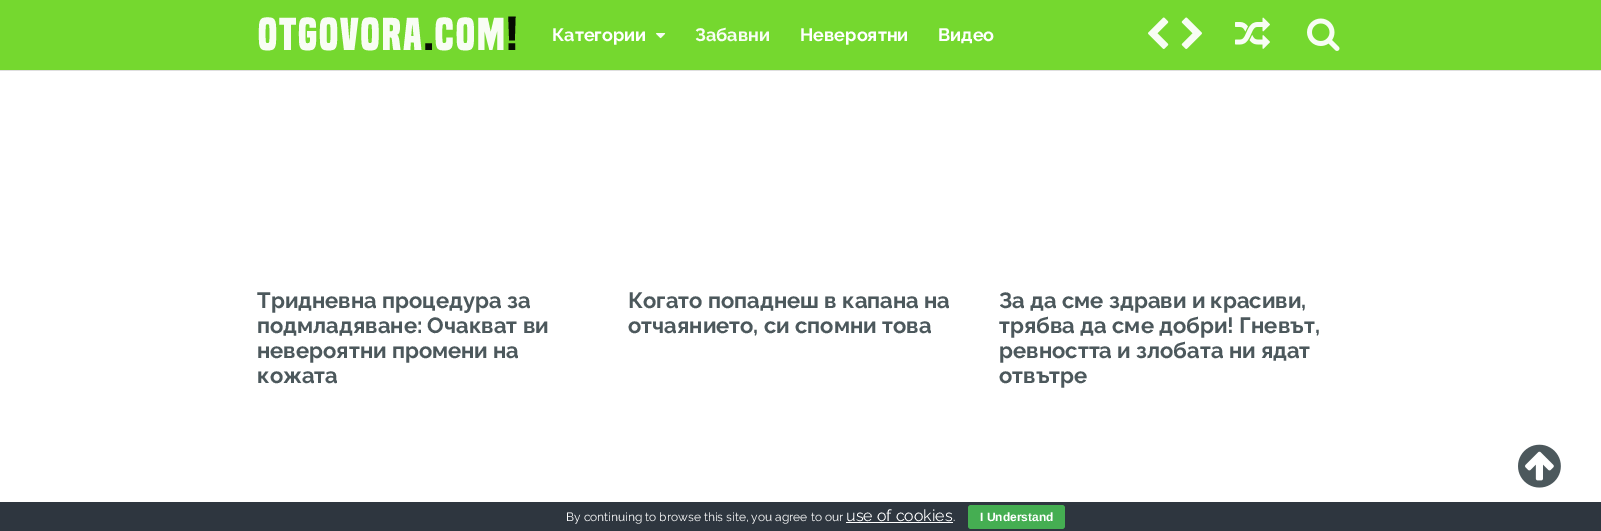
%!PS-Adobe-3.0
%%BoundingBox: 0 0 1601 531
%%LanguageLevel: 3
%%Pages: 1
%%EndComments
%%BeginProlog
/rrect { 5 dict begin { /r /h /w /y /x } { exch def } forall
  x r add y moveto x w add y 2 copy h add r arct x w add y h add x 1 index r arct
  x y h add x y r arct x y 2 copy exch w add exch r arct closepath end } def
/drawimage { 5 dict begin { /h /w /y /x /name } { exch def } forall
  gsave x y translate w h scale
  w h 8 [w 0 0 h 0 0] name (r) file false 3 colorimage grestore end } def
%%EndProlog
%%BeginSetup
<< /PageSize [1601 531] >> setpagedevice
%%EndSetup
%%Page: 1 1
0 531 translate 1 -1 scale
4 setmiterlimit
1 setgray
0 0 1601 531 rectfill
0.459 0.847 0.184 setrgbcolor
0 0 1601 70 rectfill
0.875 setgray
0 70 1601 1 rectfill
(images/1.raw) 258 16 258 35 drawimage
(images/2.raw) 656 33 10 6 drawimage
(images/3.raw) 1148 17 21 32 drawimage
(images/4.raw) 1181 17 21 32 drawimage
(images/5.raw) 1235 17 35 32 drawimage
(images/6.raw) 1307 18 33 33 drawimage
(images/7.raw) 1518 444 43 44 drawimage
0.18 0.212 0.247 setrgbcolor
0 502 1601 29 rectfill
1 setgray
846 522 107 1 rectfill
0.271 0.682 0.322 setrgbcolor
968 505 97 24 3 rrect fill
/Raleway-Bold [18 0 0 -18 0 0] selectfont
1 setgray
552 41 moveto (Категории) show
0.973 0.992 0.961 setrgbcolor
695 41 moveto (Забавни) show
1 setgray
800 41 moveto (Невероятни) show
938 41 moveto (Видео) show
/Raleway-Bold [22 0 0 -22 0 0] selectfont
0.298 0.345 0.361 setrgbcolor
257 308 moveto (Тридневна процедура за) show
257 333 moveto (подмладяване: Очакват ви) show
257 358 moveto (невероятни промени на) show
257 383 moveto (кожата) show
628 308 moveto (Когато попаднеш в капана на) show
628 333 moveto (отчаянието, си спомни това) show
999 308 moveto (За да сме здрави и красиви,) show
999 333 moveto (трябва да сме добри! Гневът,) show
999 358 moveto (ревността и злобата ни ядат) show
999 383 moveto (отвътре) show
/Raleway-Regular [12 0 0 -12 0 0] selectfont
1 setgray
566 521 moveto (By continuing to browse this site, you agree to our) show
/Raleway-Regular [16 0 0 -16 0 0] selectfont
846 521 moveto (use of cookies) show
/Raleway-Regular [12 0 0 -12 0 0] selectfont
953 521 moveto (.) show
/LiberationSans-Bold [12 0 0 -12 0 0] selectfont
980 521 moveto (I Understand) show
showpage
%%EOF
